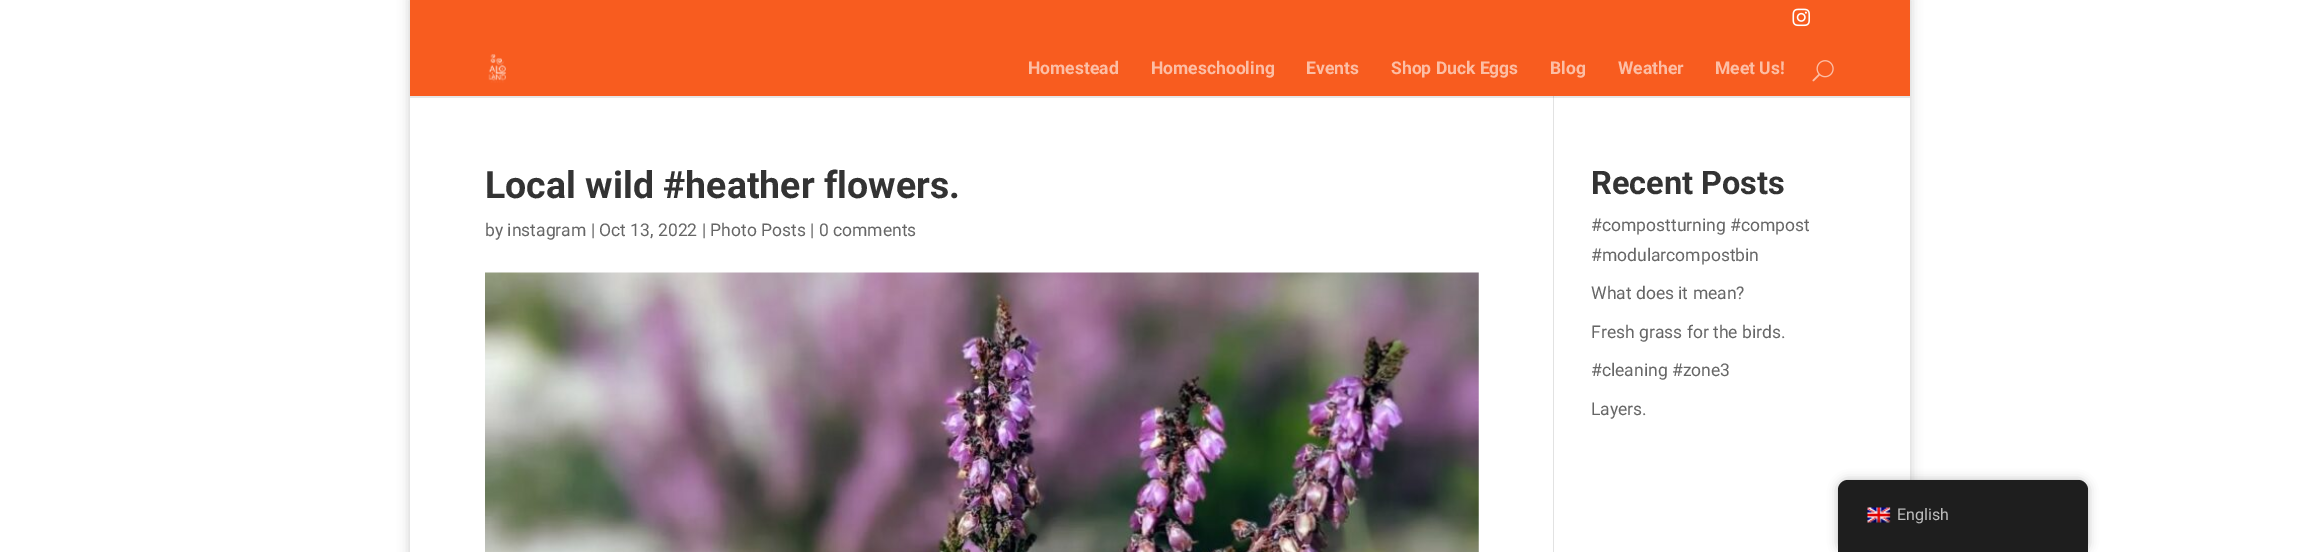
%!PS-Adobe-3.0
%%BoundingBox: 0 0 2320 552
%%LanguageLevel: 3
%%Pages: 1
%%EndComments
%%BeginProlog
/setalpha { dup .setfillconstantalpha .setstrokeconstantalpha } def
/rrect { 5 dict begin { /r /h /w /y /x } { exch def } forall
  x r add y moveto x w add y 2 copy h add r arct x w add y h add x 1 index r arct
  x y h add x y r arct x y 2 copy exch w add exch r arct closepath end } def
/softshadow { 12 dict begin { /a /b /q /h /w /y /x } { exch def } forall gsave /was 0 def
  9 -2 -9 { dup b mul 4 div /e exch def 1 sub .425 mul 2.718 exch exp 1 add a .99 .min exch div /now exch def
    1 1 now sub 1 was sub div sub setalpha /was now def
    w h .min e 2 mul add 0 gt { x e sub y e sub w e 2 mul add h e 2 mul add
      q e add b .6 mul add w h .min 2 div e add .min 0 .max rrect fill } if } for grestore end } def
/drawimage { 5 dict begin { /h /w /y /x /name } { exch def } forall
  gsave x y translate w h scale
  w h 8 [w 0 0 h 0 0] name (r) file false 3 colorimage grestore end } def
%%EndProlog
%%BeginSetup
<< /PageSize [2320 552] /PageUsesTransparency true >> setpagedevice
%%EndSetup
%%Page: 1 1
0 .pushpdf14devicefilter
0 552 translate 1 -1 scale
4 setmiterlimit
1 setgray
0 0 2320 552 rectfill
0.902 setgray
410 96 1500 2 rectfill
gsave
newpath 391 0 moveto 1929 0 lineto 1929 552 lineto 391 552 lineto closepath 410 -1 moveto 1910 -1 lineto 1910 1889 lineto 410 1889 lineto closepath eoclip newpath
0 setgray
410 -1 1500 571 0 6 0.2 softshadow
grestore
0.886 setgray
1553 94 1 458 rectfill
0.973 0.361 0.122 setrgbcolor
410 0 1500 96 rectfill
(images/1.raw) 1792 8 18 19 drawimage
(images/2.raw) 488 54 18 29 drawimage
(images/3.raw) 1812 60 22 22 drawimage
0.796 setgray
1553 96 1 2 rectfill
(images/4.raw) 485 272 994 280 drawimage
0 setgray
1838 480 250 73 10 5 0.25 softshadow
0.118 setgray
newpath 1848 480 moveto 2078 480 lineto 2083.5 480 2088 484.5 2088 490 curveto 2088 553 lineto 1838 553 lineto 1838 490 lineto 1838 484.5 1842.5 480 1848 480 curveto closepath fill
(images/5.raw) 1867 507 24 16 drawimage
/Roboto-Bold [17.5 0 0 -17.5 0 0] selectfont
0.988 0.745 0.647 setrgbcolor
1028 74 moveto (Homestead) show
1151 74 moveto (Homeschooling) show
1306 74 moveto (Events) show
1391 74 moveto (Shop Duck Eggs) show
1550 74 moveto (Blog) show
1618 74 moveto (Weather) show
1715 74 moveto (Meet Us!) show
/Roboto-Bold [37.5 0 0 -37.5 0 0] selectfont
0.2 setgray
485 198 moveto (Local wild #heather flowers.) show
/Roboto-Regular [17.5 0 0 -17.5 0 0] selectfont
0.4 setgray
485 236 moveto (by instagram | Oct 13, 2022 | Photo Posts | 0 comments) show
/Roboto-Bold [32.5 0 0 -32.5 0 0] selectfont
0.2 setgray
1591 194 moveto (Recent Posts) show
/Roboto-Regular [17.5 0 0 -17.5 0 0] selectfont
0.4 setgray
1591 231 moveto (#compostturning #compost) show
1591 261 moveto (#modularcompostbin) show
1591 299 moveto (What does it mean?) show
1591 338 moveto (Fresh grass for the birds.) show
1591 376 moveto (#cleaning #zone3) show
1591 415 moveto (Layers.) show
/Roboto-Regular [16 0 0 -16 0 0] selectfont
0.741 setgray
1897 520 moveto (English) show
.poppdf14devicefilter showpage
%%EOF
